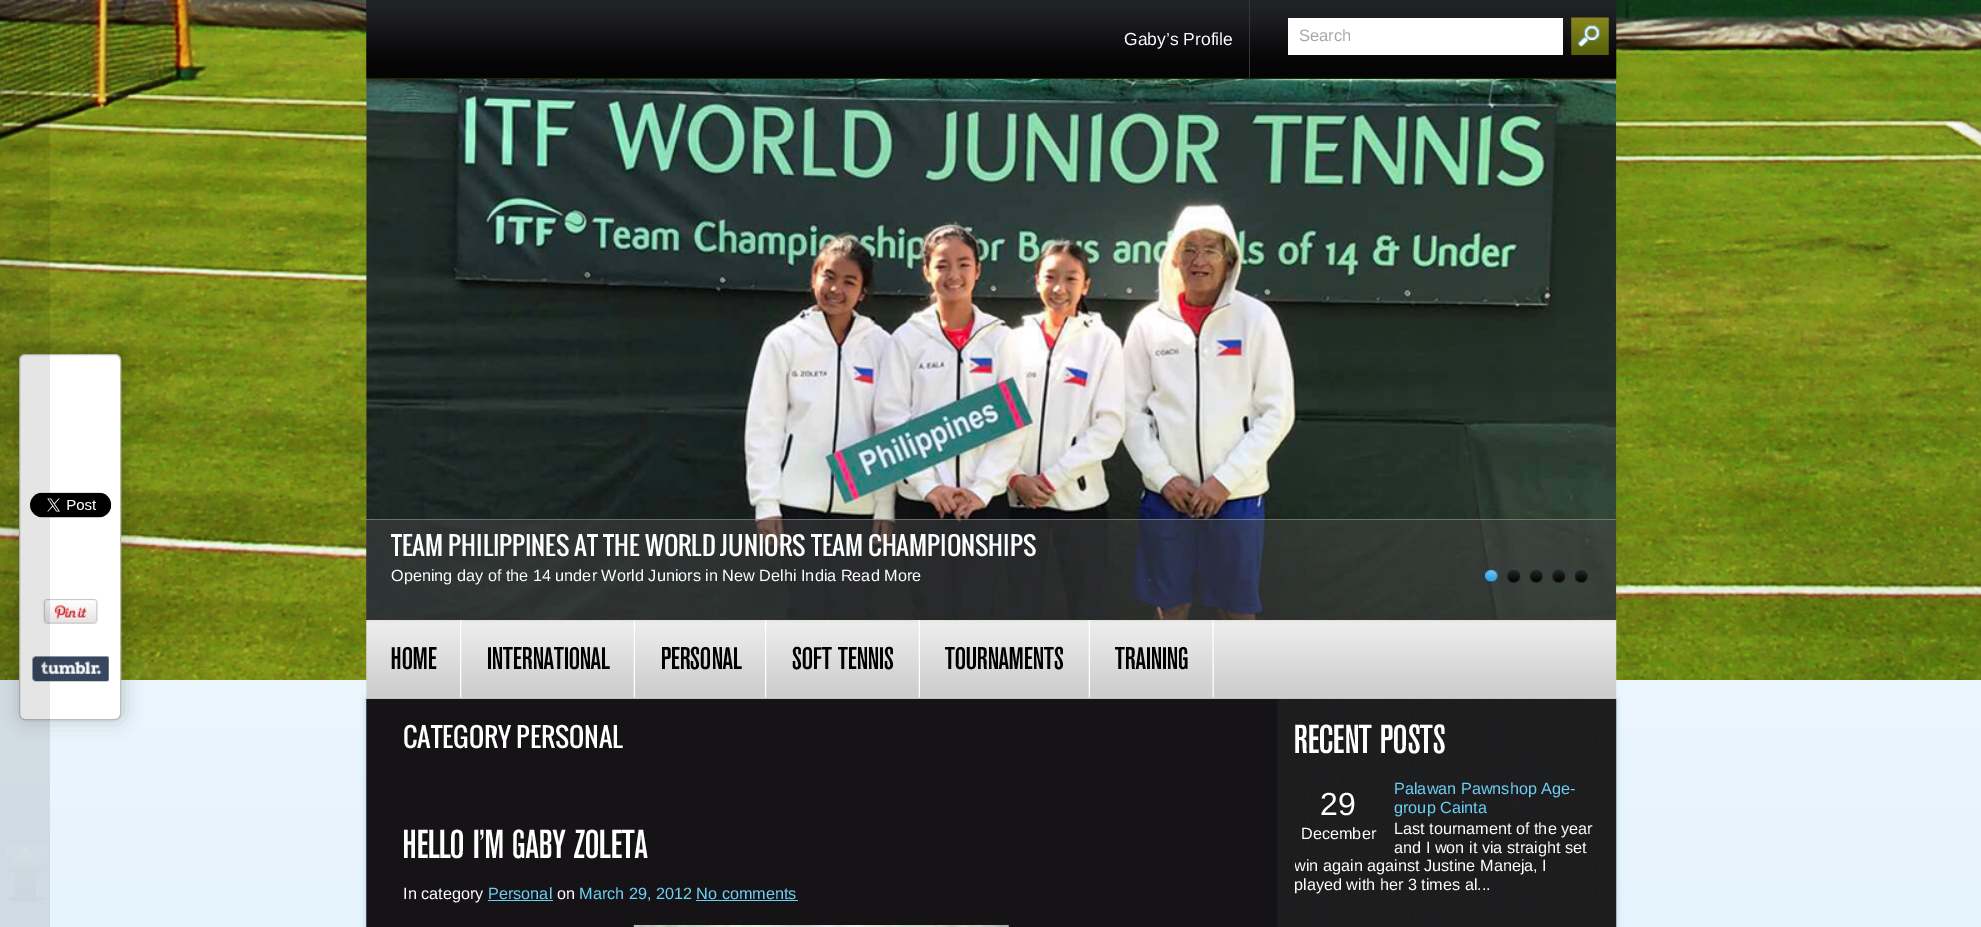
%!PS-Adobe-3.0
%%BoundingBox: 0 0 1981 927
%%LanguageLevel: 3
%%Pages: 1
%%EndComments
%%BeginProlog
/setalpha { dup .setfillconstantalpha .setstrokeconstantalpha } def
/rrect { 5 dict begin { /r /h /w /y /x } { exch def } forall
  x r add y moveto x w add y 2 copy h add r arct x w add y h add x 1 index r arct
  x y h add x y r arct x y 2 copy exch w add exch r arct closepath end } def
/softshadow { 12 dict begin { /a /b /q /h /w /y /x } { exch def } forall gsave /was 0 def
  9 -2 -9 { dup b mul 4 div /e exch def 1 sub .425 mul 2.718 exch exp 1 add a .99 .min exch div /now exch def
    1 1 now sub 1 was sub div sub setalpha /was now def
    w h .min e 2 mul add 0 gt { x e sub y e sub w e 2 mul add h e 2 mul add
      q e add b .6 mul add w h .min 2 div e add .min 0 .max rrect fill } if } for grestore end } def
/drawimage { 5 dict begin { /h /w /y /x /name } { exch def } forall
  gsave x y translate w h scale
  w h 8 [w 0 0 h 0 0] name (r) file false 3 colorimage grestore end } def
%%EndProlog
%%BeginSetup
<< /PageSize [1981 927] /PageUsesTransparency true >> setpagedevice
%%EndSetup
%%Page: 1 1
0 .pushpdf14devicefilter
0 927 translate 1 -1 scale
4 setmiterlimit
1 setgray
0 0 1981 927 rectfill
gsave newpath 0 680 moveto 1981 680 lineto 1981 927 lineto 0 927 lineto closepath clip newpath
<< /ShadingType 2 /ColorSpace /DeviceRGB /Coords [991 0 991 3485] /Extend [true true] /Function << /FunctionType 2 /Domain [0 1] /C0 [0.969 0.98 0.992] /C1 [0.722 0.898 1] /N 1 >> >> shfill grestore
(images/2.raw) 0 0 1981 680 drawimage
0 setgray
20 354 103 366 6 9.5 0.2 softshadow
1 setgray
19.5 354.5 101 365 5.5 rrect gsave fill grestore
0.733 setgray
stroke
(images/3.raw) 30 492 82 26 drawimage
(images/4.raw) 43 598 55 26 drawimage
(images/5.raw) 32 656 77 26 drawimage
0.1 setalpha
0 setgray
0 0 50 927 rectfill
1 setalpha
(images/1.raw) 6 846 41 56 drawimage
(images/8.raw) 366 78 1251 542 drawimage
(images/6.raw) 366 0 1251 79 drawimage
0.212 setgray
1249 0 1 78 rectfill
1 setgray
1288 18 275 37 rectfill
(images/7.raw) 1571 17 38 38 drawimage
0.5 setalpha
0.267 setgray
366 519 1250 101 rectfill
0.667 setgray
366 519 1250 1 rectfill
1 setalpha
(images/9.raw) 1485 570 13 13 drawimage
(images/10.raw) 1507 570 13 13 drawimage
(images/11.raw) 1530 570 13 13 drawimage
(images/12.raw) 1552 570 13 13 drawimage
(images/13.raw) 1575 570 13 13 drawimage
0.675 0.812 0.898 setrgbcolor
366 699 1250 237 0 3 1 softshadow
(images/20.raw) 366 698 1251 229 drawimage
(images/14.raw) 366 620 1251 79 drawimage
(images/15.raw) 460 620 2 78 drawimage
(images/16.raw) 633 620 2 78 drawimage
(images/17.raw) 765 620 2 78 drawimage
(images/18.raw) 918 620 2 78 drawimage
(images/16.raw) 1088 620 2 78 drawimage
(images/19.raw) 1212 620 2 78 drawimage
0.427 0.812 0.965 setrgbcolor
488 900 65 1 rectfill
696 900 102 1 rectfill
(images/21.raw) 633 925 376 2 drawimage
/LiberationSans-Regular [17.5 0 0 -17.5 0 0] selectfont
1 setgray
1124 45 moveto (Gaby’s Profile) show
/LiberationSans-Regular [16.5 0 0 -16.5 0 0] selectfont
0.655 setgray
1299 41 moveto (Search) show
/Oswald-Regular [25 0 0 -25 0 0] selectfont
1 setgray
391 556 moveto (TEAM PHILIPPINES AT THE WORLD JUNIORS TEAM CHAMPIONSHIPS) show
/LiberationSans-Regular [16.25 0 0 -16.25 0 0] selectfont
391 581 moveto (Opening day of the 14 under World Juniors in New Delhi India Read More) show
/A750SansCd-Medium [31 0 0 -31 0 0] selectfont
0 setgray
391 669 moveto (HOME) show
487 669 moveto (INTERNATIONAL) show
661 669 moveto (PERSONAL) show
792 669 moveto (SOFT TENNIS) show
945 669 moveto (TOURNAMENTS) show
1115 669 moveto (TRAINING) show
/Oswald-Regular [26.25 0 0 -26.25 0 0] selectfont
1 setgray
403 748 moveto (CATEGORY PERSONAL) show
/A750SansCd-Medium [40 0 0 -40 0 0] selectfont
403 858 moveto (HELLO I’M GABY ZOLETA) show
/LiberationSans-Regular [16.25 0 0 -16.25 0 0] selectfont
403 899 moveto (In category) show
0.427 0.812 0.965 setrgbcolor
488 899 moveto (Personal) show
1 setgray
557 899 moveto (on) show
0.427 0.812 0.965 setrgbcolor
579 899 moveto (March 29, 2012 No comments) show
/A750SansCd-Medium [40 0 0 -40 0 0] selectfont
1 setgray
1294 753 moveto (RECENT POSTS) show
/LiberationSans-Regular [16.25 0 0 -16.25 0 0] selectfont
0.427 0.812 0.965 setrgbcolor
1394 794 moveto (Palawan Pawnshop Age-) show
/LiberationSans-Regular [32 0 0 -32 0 0] selectfont
1 setgray
1320 815 moveto (29) show
/LiberationSans-Regular [16.25 0 0 -16.25 0 0] selectfont
1301 839 moveto (December) show
0.427 0.812 0.965 setrgbcolor
1394 813 moveto (group Cainta) show
1 setgray
1394 834 moveto (Last tournament of the year) show
1394 853 moveto (and I won it via straight set) show
gsave
1295 769 303 140 rectclip
1294 871 moveto (win again against Justine Maneja, I) show
grestore
1294 890 moveto (played with her 3 times al...) show
.poppdf14devicefilter showpage
%%EOF
